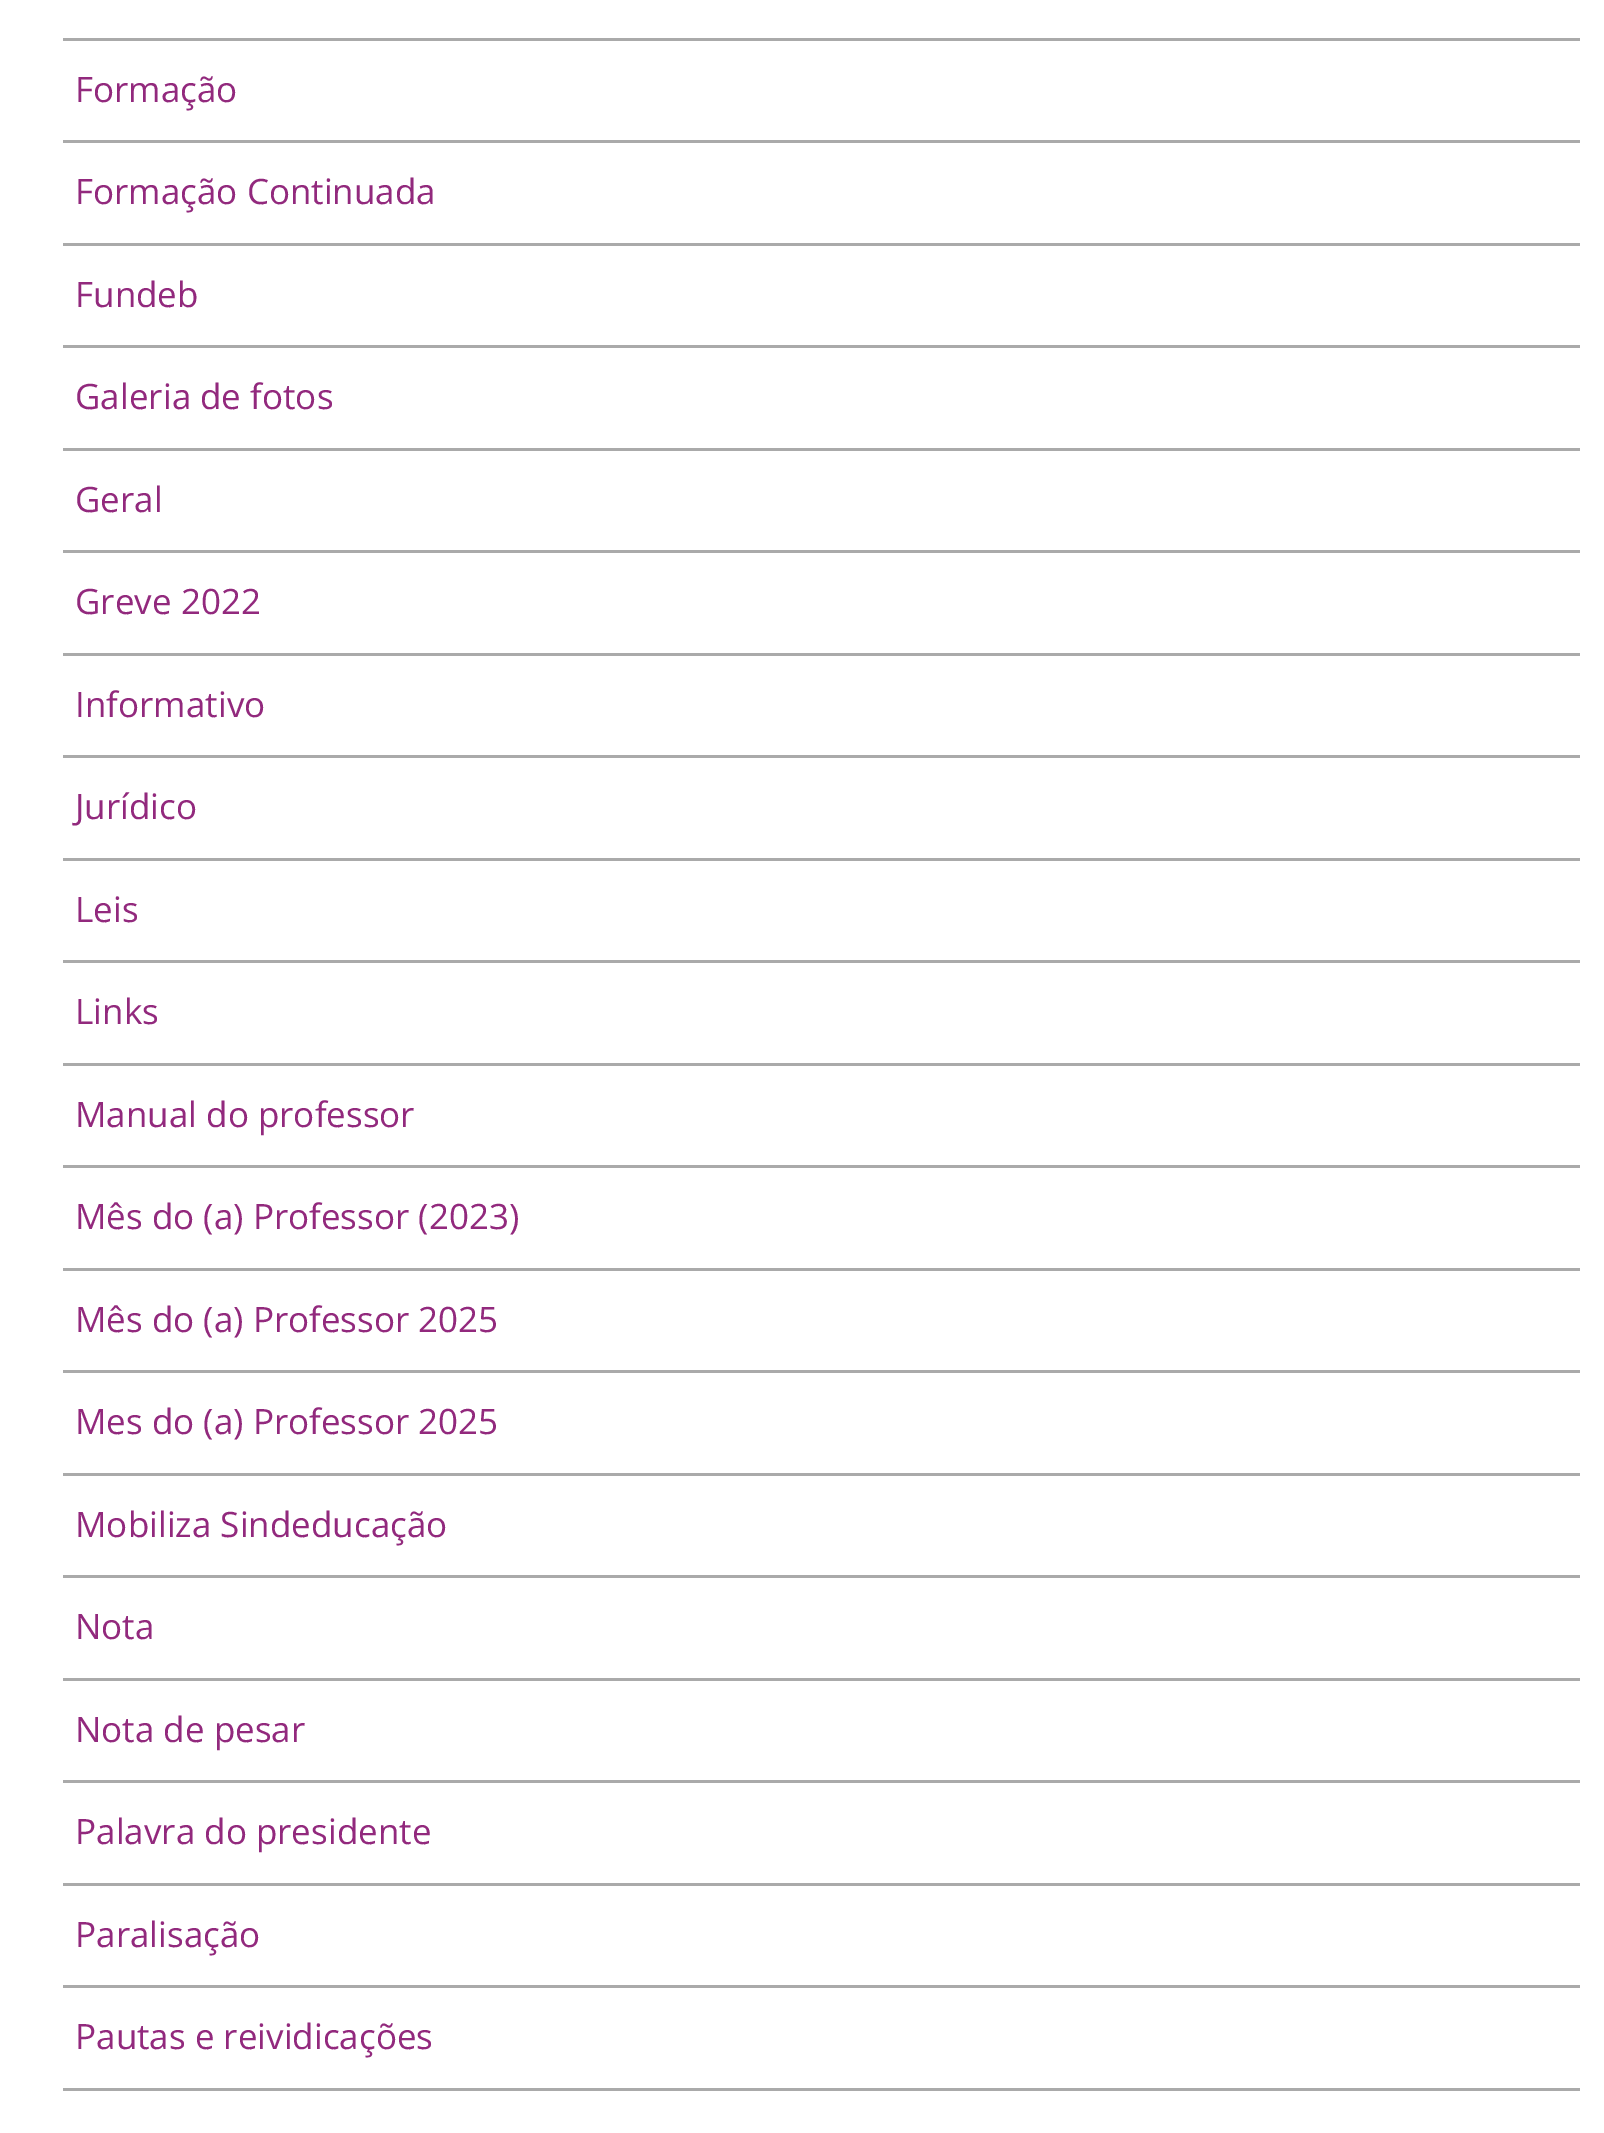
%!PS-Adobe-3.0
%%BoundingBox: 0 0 1604 2133
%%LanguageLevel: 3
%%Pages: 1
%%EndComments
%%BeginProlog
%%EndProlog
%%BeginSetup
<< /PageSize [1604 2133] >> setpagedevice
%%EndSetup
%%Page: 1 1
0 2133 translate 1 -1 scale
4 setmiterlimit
1 setgray
0 0 1604 2133 rectfill
0.667 setgray
63 38 1517 3 rectfill
63 140 1517 3 rectfill
63 243 1517 3 rectfill
63 345 1517 3 rectfill
63 448 1517 3 rectfill
63 550 1517 3 rectfill
63 653 1517 3 rectfill
63 755 1517 3 rectfill
63 858 1517 3 rectfill
63 960 1517 3 rectfill
63 1063 1517 3 rectfill
63 1165 1517 3 rectfill
63 1268 1517 3 rectfill
63 1370 1517 3 rectfill
63 1473 1517 3 rectfill
63 1575 1517 3 rectfill
63 1678 1517 3 rectfill
63 1780 1517 3 rectfill
63 1883 1517 3 rectfill
63 1985 1517 3 rectfill
63 2088 1517 3 rectfill
/OpenSans-Regular [35 0 0 -35 0 0] selectfont
0.573 0.161 0.49 setrgbcolor
75 102 moveto (Formação) show
75 204 moveto (Formação Continuada) show
75 307 moveto (Fundeb) show
75 409 moveto (Galeria de fotos) show
75 512 moveto (Geral) show
75 614 moveto (Greve 2022) show
75 717 moveto (Informativo) show
75 819 moveto (Jurídico) show
75 922 moveto (Leis) show
75 1024 moveto (Links) show
75 1127 moveto (Manual do professor) show
75 1229 moveto (Mês do \(a\) Professor \(2023\)) show
75 1332 moveto (Mês do \(a\) Professor 2025) show
75 1434 moveto (Mes do \(a\) Professor 2025) show
75 1537 moveto (Mobiliza Sindeducação) show
75 1639 moveto (Nota) show
75 1742 moveto (Nota de pesar) show
75 1844 moveto (Palavra do presidente) show
75 1947 moveto (Paralisação) show
75 2049 moveto (Pautas e reividicações) show
showpage
%%EOF
